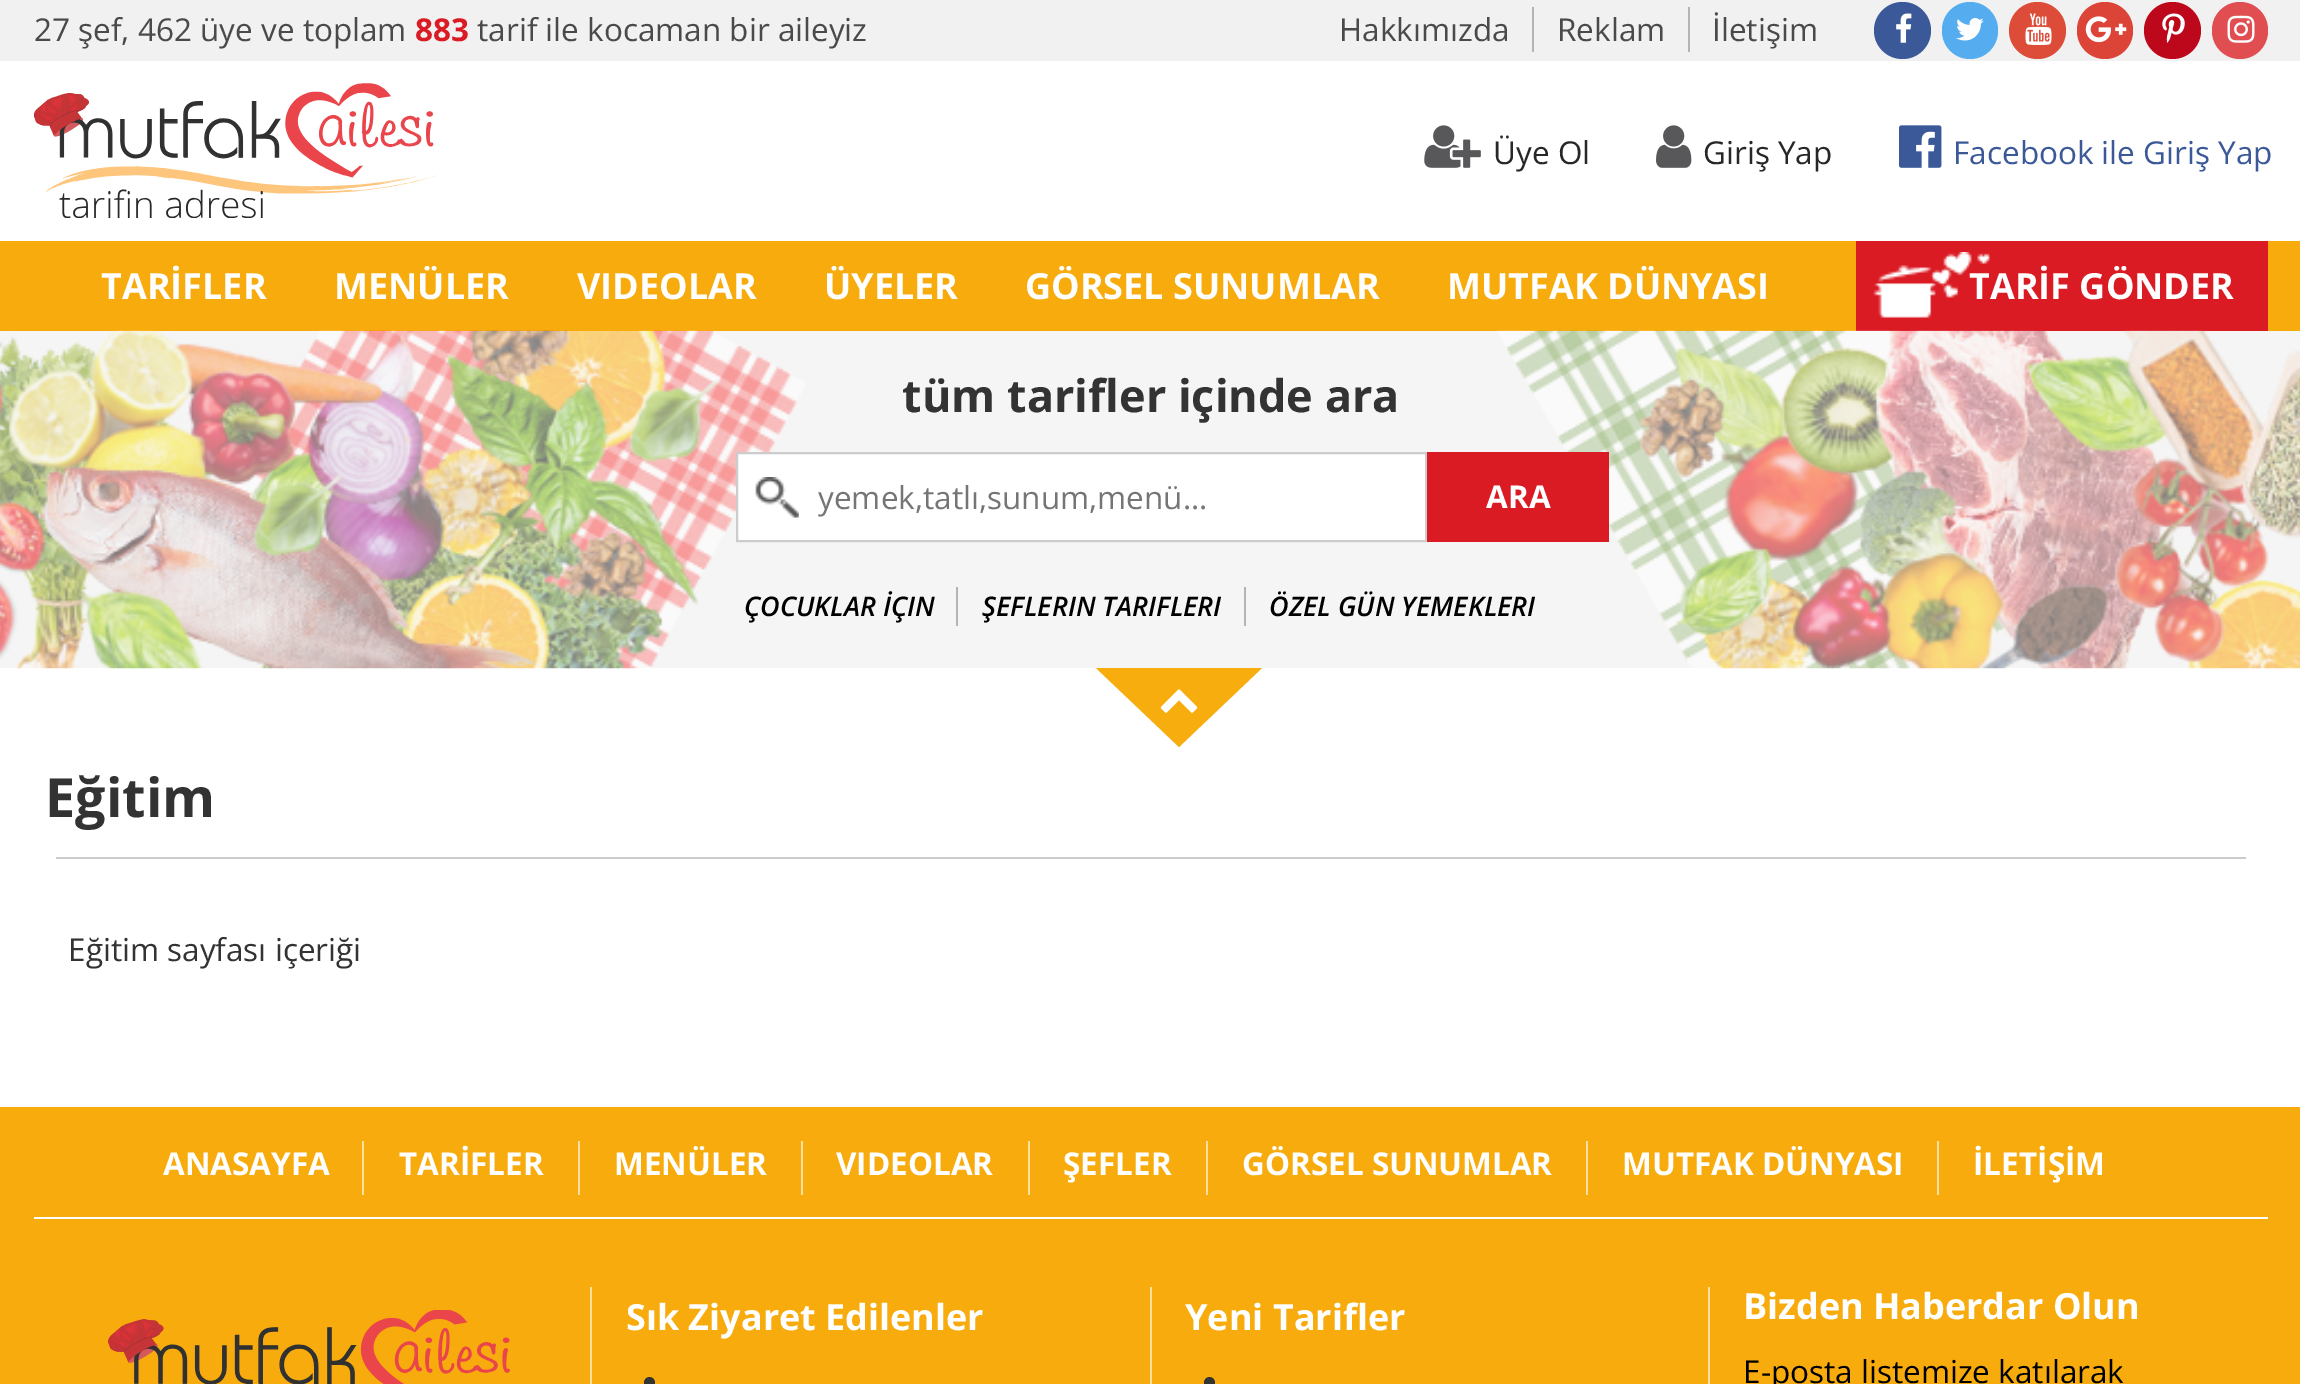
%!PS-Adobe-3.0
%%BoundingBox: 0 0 2300 1384
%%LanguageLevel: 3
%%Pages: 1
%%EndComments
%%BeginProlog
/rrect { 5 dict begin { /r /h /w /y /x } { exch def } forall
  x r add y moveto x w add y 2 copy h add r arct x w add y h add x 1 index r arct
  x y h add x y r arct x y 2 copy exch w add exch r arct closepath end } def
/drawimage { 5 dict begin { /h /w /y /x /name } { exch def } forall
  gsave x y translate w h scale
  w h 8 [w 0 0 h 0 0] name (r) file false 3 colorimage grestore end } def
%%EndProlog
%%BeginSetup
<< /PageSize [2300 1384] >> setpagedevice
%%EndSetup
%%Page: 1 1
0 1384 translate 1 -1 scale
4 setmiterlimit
1 setgray
0 0 2300 1384 rectfill
0.945 setgray
0 0 2300 61 rectfill
0.706 setgray
1532 7 2 45 rectfill
1688 7 2 45 rectfill
0.231 0.349 0.6 setrgbcolor
newpath 1902.5 30.5 28.5 0 360 arc closepath fill
(images/1.raw) 1896 13 16 30 drawimage
0.333 0.675 0.933 setrgbcolor
1942 2 56 57 28 rrect fill
(images/2.raw) 1956 18 28 23 drawimage
0.867 0.294 0.224 setrgbcolor
newpath 2037.5 30.5 28.5 0 360 arc closepath fill
(images/3.raw) 2025 13 27 32 drawimage
0.859 0.267 0.216 setrgbcolor
2077 2 56 57 28 rrect fill
(images/4.raw) 2085 16 42 27 drawimage
0.741 0.031 0.11 setrgbcolor
newpath 2172.5 30.5 28.5 0 360 arc closepath fill
(images/5.raw) 2162 13 23 30 drawimage
0.878 0.306 0.318 setrgbcolor
2212 2 56 57 28 rrect fill
(images/6.raw) 2227 15 28 28 drawimage
(images/7.raw) 34 83 404 135 drawimage
(images/8.raw) 1424 125 57 43 drawimage
(images/9.raw) 1656 125 36 43 drawimage
(images/10.raw) 1899 125 43 43 drawimage
0.969 0.671 0.051 setrgbcolor
0 241 2300 90 rectfill
0.855 0.106 0.141 setrgbcolor
1856 241 412 90 rectfill
(images/11.raw) 1873 252 117 66 drawimage
0.961 setgray
0 331 2300 337 rectfill
(images/12.raw) 0 330 805 339 drawimage
(images/13.raw) 1496 330 804 339 drawimage
1 setgray
738 454 687 86 rectfill
(images/14.raw) 755 477 44 41 drawimage
0.8 setgray
2 setlinewidth
737 453 689 88 rectstroke
0.855 0.106 0.141 setrgbcolor
1427 452 182 90 rectfill
0.706 setgray
956 587 2 39 rectfill
1244 587 2 39 rectfill
0.969 0.678 0.051 setrgbcolor
newpath 1096 668 moveto 1262 668 lineto 1179 747 lineto closepath fill
(images/15.raw) 1160 689 38 24 drawimage
0.8 setgray
56 857 2190 2 rectfill
0.969 0.671 0.051 setrgbcolor
0 1107 2300 277 rectfill
1 setgray
34 1217 2234 2 rectfill
1 0.871 0.616 setrgbcolor
362 1141 2 54 rectfill
578 1141 2 54 rectfill
801 1141 2 54 rectfill
1028 1141 2 54 rectfill
1206 1141 2 54 rectfill
1586 1141 2 54 rectfill
1937 1141 2 54 rectfill
590 1287 2 97 rectfill
(images/16.raw) 108 1310 402 74 drawimage
1150 1287 2 97 rectfill
0.2 setgray
newpath 649.5 1382.5 5.5 0 360 arc closepath fill
1 0.871 0.616 setrgbcolor
1708 1287 2 97 rectfill
0.2 setgray
newpath 1209.5 1382.5 5.5 0 360 arc closepath fill
/OpenSans-Regular [31.5 0 0 -31.5 0 0] selectfont
0.29 setgray
34 41 moveto (27 şef, 462 üye ve toplam) show
/OpenSans-Bold [31.5 0 0 -31.5 0 0] selectfont
0.855 0.106 0.141 setrgbcolor
415 41 moveto (883) show
/OpenSans-Regular [31.5 0 0 -31.5 0 0] selectfont
0.29 setgray
477 41 moveto (tarif ile kocaman bir aileyiz) show
1339 41 moveto (Hakkımızda) show
1557 41 moveto (Reklam) show
1712 41 moveto (İletişim) show
0.153 setgray
1493 164 moveto (Üye Ol) show
1703 164 moveto (Giriş Yap) show
0.231 0.349 0.6 setrgbcolor
1953 164 moveto (Facebook ile Giriş Yap) show
/OpenSans-Bold [36 0 0 -36 0 0] selectfont
1 setgray
101 299 moveto (TARİFLER) show
334 299 moveto (MENÜLER) show
577 299 moveto (VIDEOLAR) show
824 299 moveto (ÜYELER) show
1025 299 moveto (GÖRSEL SUNUMLAR) show
1447 299 moveto (MUTFAK DÜNYASI) show
1969 299 moveto (TARİF GÖNDER) show
/OpenSans-Bold [45 0 0 -45 0 0] selectfont
0.2 setgray
902 412 moveto (tüm tarifler içinde ara) show
/OpenSans-Regular [31.5 0 0 -31.5 0 0] selectfont
0.459 setgray
818 509 moveto (yemek,tatlı,sunum,menü...) show
/OpenSans-Bold [31.5 0 0 -31.5 0 0] selectfont
1 setgray
1486 508 moveto (ARA) show
/OpenSans-SemiBoldItalic [27 0 0 -27 0 0] selectfont
0 setgray
744 616 moveto (ÇOCUKLAR İÇIN) show
982 616 moveto (ŞEFLERIN TARIFLERI) show
1269 616 moveto (ÖZEL GÜN YEMEKLERI) show
/OpenSans-Bold [54 0 0 -54 0 0] selectfont
0.2 setgray
45 817 moveto (Eğitim) show
/OpenSans-Regular [31.5 0 0 -31.5 0 0] selectfont
68 961 moveto (Eğitim sayfası içeriği) show
/OpenSans-Bold [31.5 0 0 -31.5 0 0] selectfont
1 setgray
163 1175 moveto (ANASAYFA) show
399 1175 moveto (TARİFLER) show
614 1175 moveto (MENÜLER) show
836 1175 moveto (VIDEOLAR) show
1063 1175 moveto (ŞEFLER) show
1242 1175 moveto (GÖRSEL SUNUMLAR) show
1622 1175 moveto (MUTFAK DÜNYASI) show
1973 1175 moveto (İLETİŞİM) show
/OpenSans-Bold [36 0 0 -36 0 0] selectfont
626 1330 moveto (Sık Ziyaret Edilenler) show
1185 1330 moveto (Yeni Tarifler) show
1743 1319 moveto (Bizden Haberdar Olun) show
/OpenSans-Regular [31.5 0 0 -31.5 0 0] selectfont
0 setgray
1743 1383 moveto (E-posta listemize katılarak) show
showpage
%%EOF
